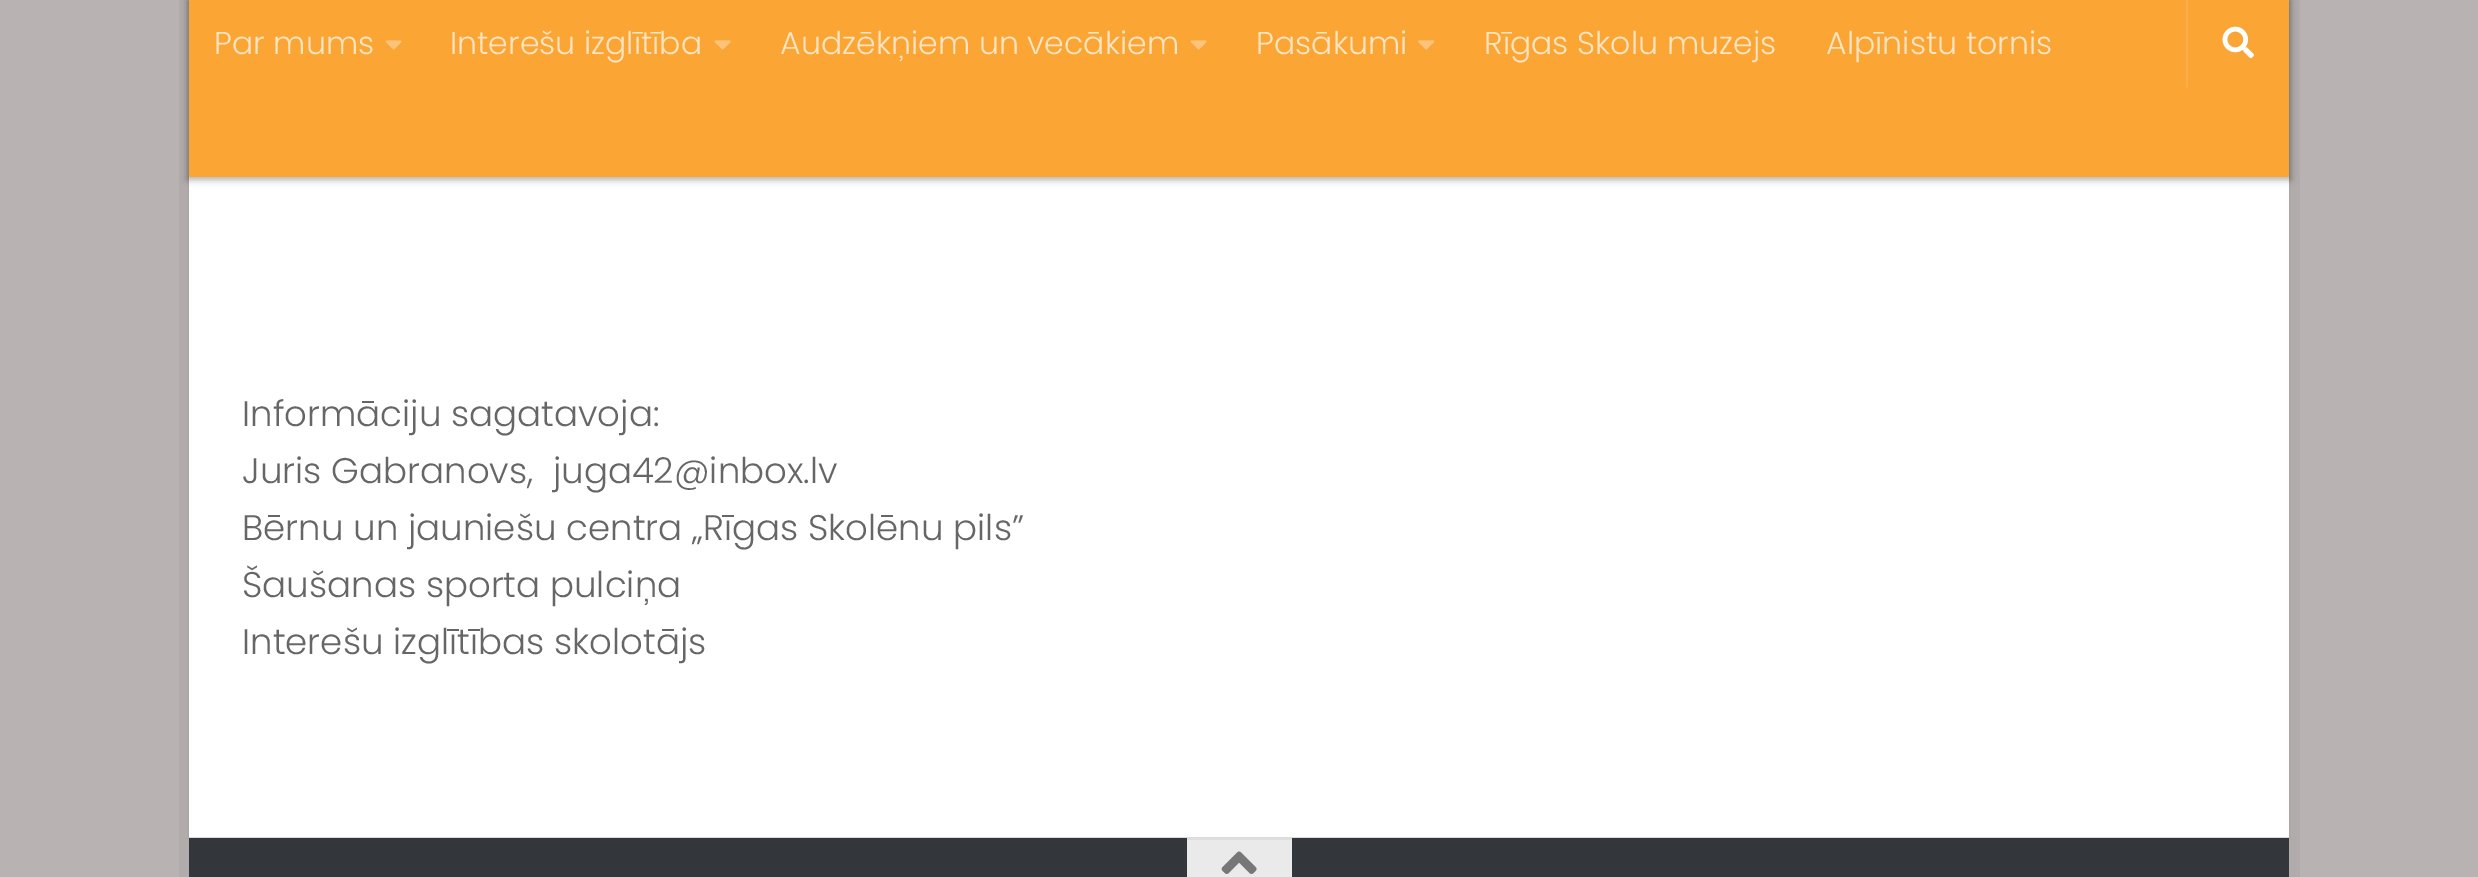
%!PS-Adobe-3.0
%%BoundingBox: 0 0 2478 877
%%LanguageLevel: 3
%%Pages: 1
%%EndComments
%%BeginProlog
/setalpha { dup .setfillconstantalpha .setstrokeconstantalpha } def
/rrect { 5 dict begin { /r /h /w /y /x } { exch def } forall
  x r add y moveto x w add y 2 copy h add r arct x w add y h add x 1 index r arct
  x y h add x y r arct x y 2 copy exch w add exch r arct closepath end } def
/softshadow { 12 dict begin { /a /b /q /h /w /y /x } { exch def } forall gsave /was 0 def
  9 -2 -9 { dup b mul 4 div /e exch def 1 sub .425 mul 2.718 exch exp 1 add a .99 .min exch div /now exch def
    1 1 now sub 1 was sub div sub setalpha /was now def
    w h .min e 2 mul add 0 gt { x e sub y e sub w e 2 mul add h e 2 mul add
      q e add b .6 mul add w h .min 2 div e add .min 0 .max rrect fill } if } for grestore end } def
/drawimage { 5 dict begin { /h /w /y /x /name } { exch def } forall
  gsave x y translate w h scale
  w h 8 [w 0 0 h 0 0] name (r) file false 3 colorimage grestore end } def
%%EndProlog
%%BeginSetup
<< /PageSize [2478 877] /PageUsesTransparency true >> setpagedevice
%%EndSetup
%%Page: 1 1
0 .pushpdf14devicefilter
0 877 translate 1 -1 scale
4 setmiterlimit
0.722 0.698 0.698 setrgbcolor
0 0 2478 877 rectfill
0.694 0.671 0.671 setrgbcolor
newpath 179 -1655 moveto 179 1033 lineto 2279 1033 lineto 2279 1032 lineto 189 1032 lineto 189 -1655 lineto closepath fill
newpath 200 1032 moveto 200 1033 lineto 2300 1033 lineto 2300 -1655 lineto 2289 -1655 lineto 2289 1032 lineto closepath fill
0.918 setgray
189 837 2100 1 rectfill
0 setgray
189 -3 2100 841 0 1 0.1 softshadow
1 setgray
189 0 2100 837 rectfill
gsave
newpath 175 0 moveto 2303 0 lineto 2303 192 lineto 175 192 lineto closepath 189 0 moveto 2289 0 lineto 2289 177 lineto 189 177 lineto closepath eoclip newpath
0 setgray
187 0 2104 180 0 3.5 0.3 softshadow
grestore
0.9 setalpha
0.976 0.608 0.118 setrgbcolor
189 0 2100 177 rectfill
1 setalpha
(images/1.raw) 385 40 17 10 drawimage
(images/1.raw) 714 40 17 10 drawimage
(images/1.raw) 1190 40 17 10 drawimage
(images/2.raw) 1418 40 17 10 drawimage
0.98 0.682 0.286 setrgbcolor
newpath 2186 0 moveto 2186 88 lineto 2287 88 lineto 2188 88 lineto 2188 0 lineto closepath fill
(images/3.raw) 2222 26 32 33 drawimage
0.2 0.212 0.231 setrgbcolor
189 838 2100 39 rectfill
0.918 setgray
1187 840 105 37 rectfill
0.871 setgray
1187 838 105 2 rectfill
(images/4.raw) 1221 851 36 23 drawimage
/Poppins-Light [31.6 0 0 -31.6 0 0] selectfont
0.992 0.894 0.761 setrgbcolor
214 54 moveto (Par mums) show
450 54 moveto (Interešu izglītība) show
780 54 moveto (Audzēkņiem un vecākiem) show
1256 54 moveto (Pasākumi) show
1484 54 moveto (Rīgas Skolu muzejs) show
1826 54 moveto (Alpīnistu tornis) show
/Poppins-Light [35.6 0 0 -35.6 0 0] selectfont
0.4 setgray
242 426 moveto (Informāciju sagatavoja:) show
242 483 moveto (Juris Gabranovs,  juga42@inbox.lv) show
242 540 moveto (Bērnu un jauniešu centra „Rīgas Skolēnu pils”) show
242 597 moveto (Šaušanas sporta pulciņa) show
242 654 moveto (Interešu izglītības skolotājs) show
.poppdf14devicefilter showpage
%%EOF
